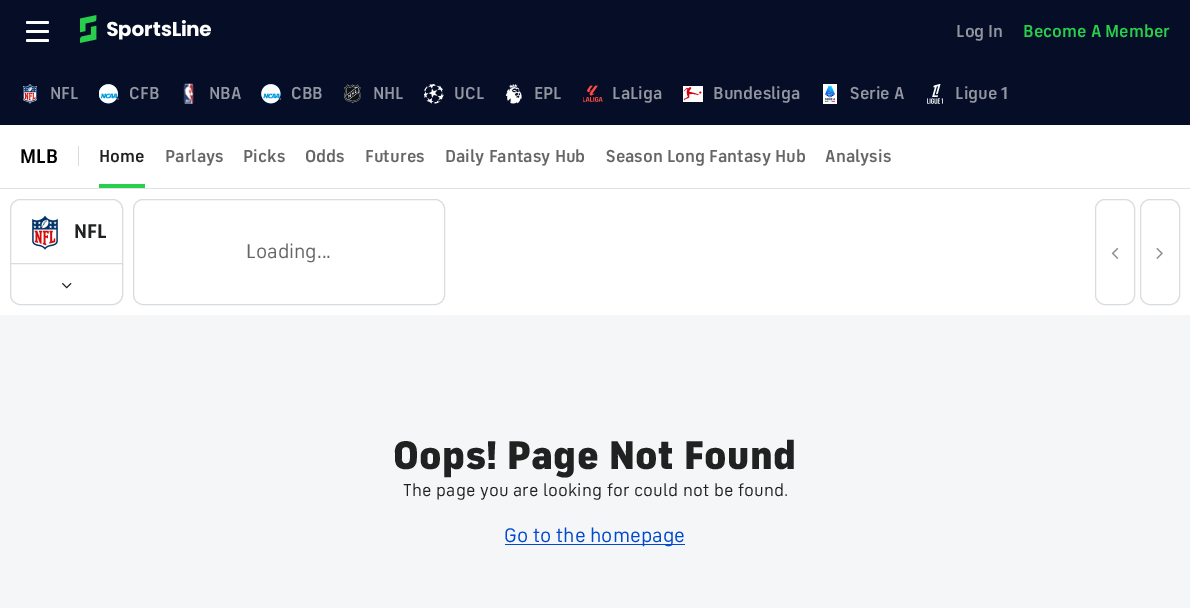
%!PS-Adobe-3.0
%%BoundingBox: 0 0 1190 608
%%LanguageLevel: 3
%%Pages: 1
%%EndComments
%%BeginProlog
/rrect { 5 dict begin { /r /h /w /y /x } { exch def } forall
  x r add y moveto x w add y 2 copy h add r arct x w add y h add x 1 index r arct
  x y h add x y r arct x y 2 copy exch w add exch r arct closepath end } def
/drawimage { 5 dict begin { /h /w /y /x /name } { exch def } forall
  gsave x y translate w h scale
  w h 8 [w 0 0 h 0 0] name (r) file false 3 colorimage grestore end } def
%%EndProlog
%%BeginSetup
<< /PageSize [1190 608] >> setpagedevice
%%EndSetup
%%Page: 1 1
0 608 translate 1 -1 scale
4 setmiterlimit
0.961 0.965 0.969 setrgbcolor
0 0 1190 608 rectfill
0.02 0.051 0.153 setrgbcolor
0 0 1190 125 rectfill
1 setgray
26 21 23 3 1.5 rrect fill
26 30 23 3 1.5 rrect fill
26 39 23 3 1.5 rrect fill
(images/1.raw) 80 15 17 28 drawimage
(images/2.raw) 107 20 104 20 drawimage
(images/3.raw) 23 84 14 20 drawimage
(images/4.raw) 99 84 20 20 drawimage
(images/5.raw) 183 83 11 21 drawimage
(images/6.raw) 261 84 20 20 drawimage
(images/7.raw) 344 84 17 20 drawimage
(images/8.raw) 424 84 20 20 drawimage
(images/9.raw) 505 84 17 20 drawimage
(images/10.raw) 583 85 20 17 drawimage
(images/11.raw) 683 86 20 16 drawimage
(images/12.raw) 823 84 14 20 drawimage
(images/13.raw) 927 84 16 20 drawimage
0 125 1190 63 rectfill
0.878 setgray
0 188 1190 1 rectfill
0.851 0.859 0.871 setrgbcolor
78 146 1 20 rectfill
0.161 0.808 0.302 setrgbcolor
99 184 46 4 rectfill
1 setgray
0 189 1190 126 rectfill
0.851 0.859 0.871 setrgbcolor
newpath 20 199.5 moveto 113 199.5 lineto 118 199.5 122.5 204 122.5 209 curveto 122.5 264.5 lineto 10.5 264.5 lineto 10.5 209 lineto 10.5 204 15 199.5 20 199.5 curveto closepath stroke
(images/14.raw) 32 215 26 35 drawimage
1 setgray
newpath 10.5 263.5 moveto 122.5 263.5 lineto 122.5 295 lineto 122.5 300 118 304.5 113 304.5 curveto 20 304.5 lineto 15 304.5 10.5 300 10.5 295 curveto closepath gsave fill grestore
0.851 0.859 0.871 setrgbcolor
stroke
(images/15.raw) 62 282 10 7 drawimage
133.5 199.5 311 105 9.5 rrect stroke
1095.5 199.5 39 105 9.5 rrect stroke
(images/16.raw) 1111 247 8 12 drawimage
1140.5 199.5 39 105 9.5 rrect stroke
(images/17.raw) 1156 247 7 12 drawimage
0 0.286 0.808 setrgbcolor
505 544 180 1 rectfill
/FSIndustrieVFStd-SemiBold [17.5 0 0 -17.5 0 0] selectfont
0.573 0.588 0.631 setrgbcolor
956 37 moveto (Log In) show
0.161 0.808 0.302 setrgbcolor
1023 37 moveto (Become A Member) show
0.573 0.588 0.631 setrgbcolor
50 99 moveto (NFL) show
129 99 moveto (CFB) show
209 99 moveto (NBA) show
291 99 moveto (CBB) show
373 99 moveto (NHL) show
454 99 moveto (UCL) show
534 99 moveto (EPL) show
612 99 moveto (LaLiga) show
713 99 moveto (Bundesliga) show
850 99 moveto (Serie A) show
955 99 moveto (Ligue 1) show
/FSIndustrieVFStd-SemiBold [20 0 0 -20 0 0] selectfont
0 setgray
20 163 moveto (MLB) show
/FSIndustrieVFStd-SemiBold [17.5 0 0 -17.5 0 0] selectfont
0.125 0.129 0.129 setrgbcolor
99 162 moveto (Home) show
0.396 0.4 0.404 setrgbcolor
165 162 moveto (Parlays) show
243 162 moveto (Picks) show
305 162 moveto (Odds) show
365 162 moveto (Futures) show
445 162 moveto (Daily Fantasy Hub) show
606 162 moveto (Season Long Fantasy Hub) show
825 162 moveto (Analysis) show
/FSIndustrieVFStd-Bold [20 0 0 -20 0 0] selectfont
0.125 0.129 0.129 setrgbcolor
74 238 moveto (NFL) show
/FSIndustrieVFStd-Regular [20 0 0 -20 0 0] selectfont
0.396 0.4 0.404 setrgbcolor
246 258 moveto (Loading...) show
/FSIndustrieVFStd-Black [40 0 0 -40 0 0] selectfont
0.125 0.129 0.129 setrgbcolor
393 469 moveto 0.4 0 (Oops! Page Not Found) ashow
/FSIndustrieVFStd-Regular [17.5 0 0 -17.5 0 0] selectfont
403 496 moveto 0.2 0 (The page you are looking for could not be found.) ashow
/FSIndustrieVFStd-Regular [20 0 0 -20 0 0] selectfont
0 0.286 0.808 setrgbcolor
504 542 moveto (Go to the homepage) show
showpage
%%EOF
